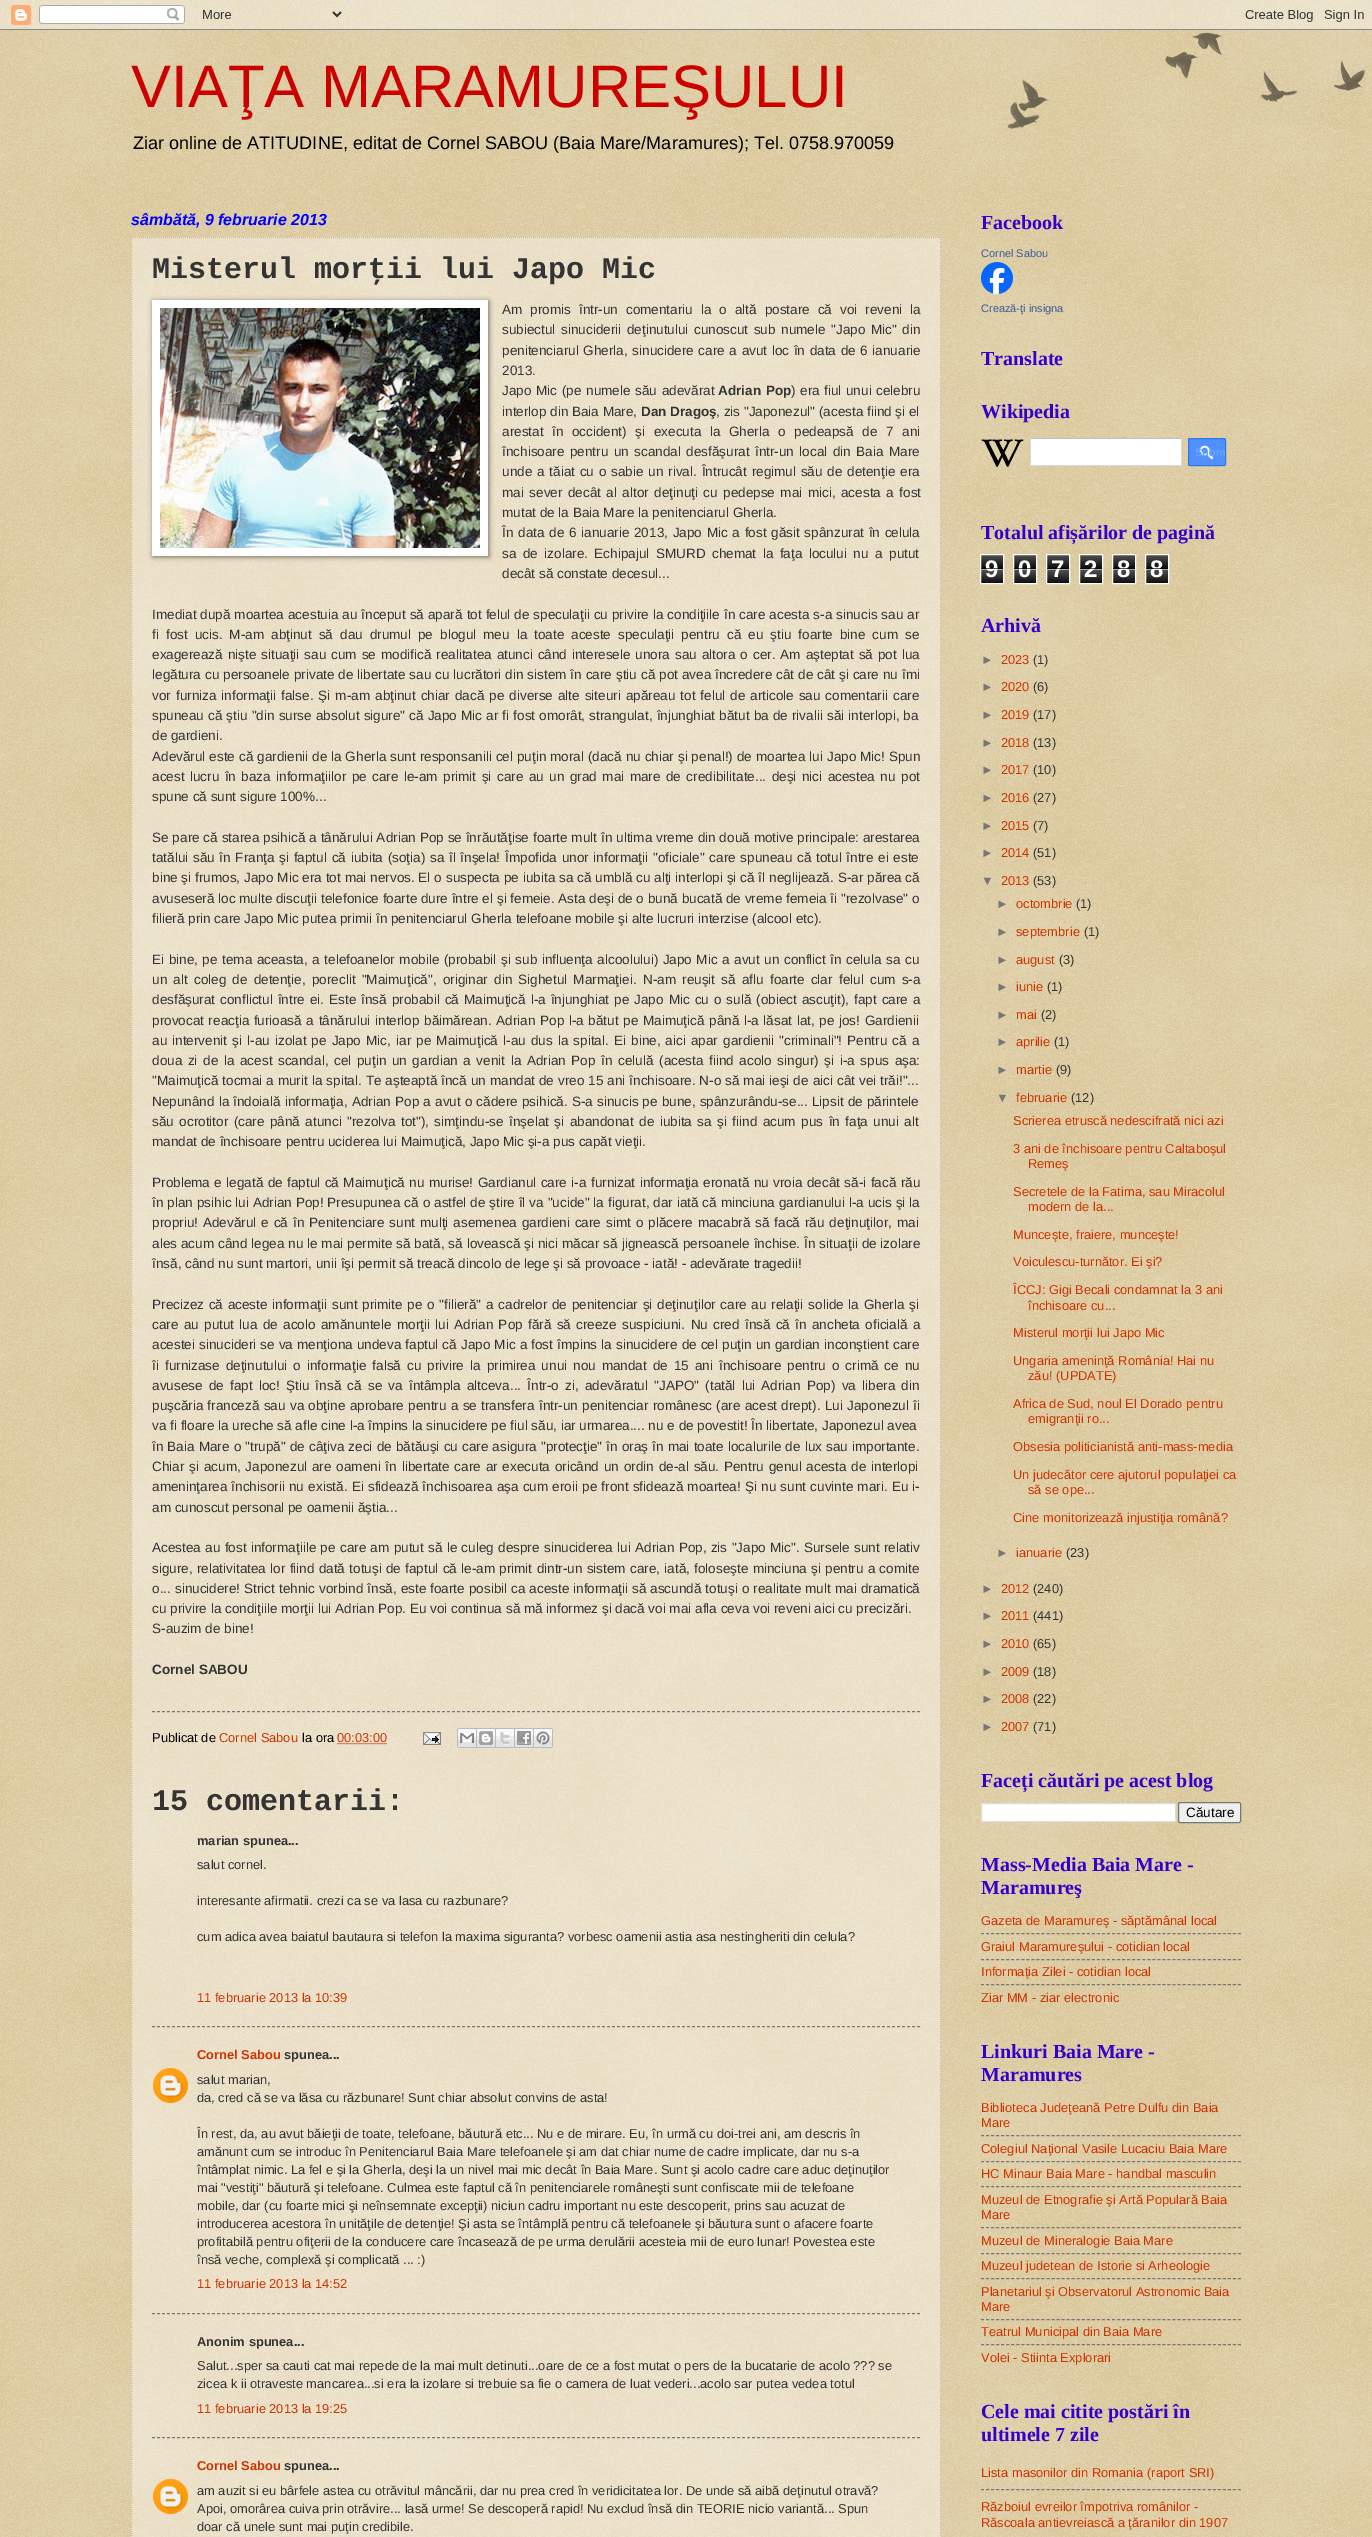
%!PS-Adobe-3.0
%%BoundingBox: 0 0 1372 2537
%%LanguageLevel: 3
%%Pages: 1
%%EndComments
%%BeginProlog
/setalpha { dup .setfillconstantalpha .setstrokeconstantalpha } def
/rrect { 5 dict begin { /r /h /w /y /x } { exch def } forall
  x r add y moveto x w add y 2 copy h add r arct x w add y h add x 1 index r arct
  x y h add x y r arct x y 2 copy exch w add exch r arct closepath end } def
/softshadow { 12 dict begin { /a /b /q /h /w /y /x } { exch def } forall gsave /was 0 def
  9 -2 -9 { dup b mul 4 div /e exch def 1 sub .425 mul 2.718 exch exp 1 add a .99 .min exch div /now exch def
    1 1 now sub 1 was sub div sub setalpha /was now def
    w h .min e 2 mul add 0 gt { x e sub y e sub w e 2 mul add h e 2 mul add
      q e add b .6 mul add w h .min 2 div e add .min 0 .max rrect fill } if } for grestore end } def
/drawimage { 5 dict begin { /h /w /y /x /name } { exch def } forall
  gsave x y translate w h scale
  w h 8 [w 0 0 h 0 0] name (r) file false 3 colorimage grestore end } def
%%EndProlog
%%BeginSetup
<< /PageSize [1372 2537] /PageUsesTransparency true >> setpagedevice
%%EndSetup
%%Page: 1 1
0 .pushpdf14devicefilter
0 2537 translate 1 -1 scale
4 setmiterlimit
0.753 0.631 0.329 setrgbcolor
0 0 1372 2537 rectfill
(images/1.raw) 0 0 1372 2537 drawimage
(images/2.raw) 0 0 1372 30 drawimage
(images/3.raw) 1007 32 359 97 drawimage
0.4 setalpha
1 setgray
131 237 810 2300 rectfill
1 setalpha
0.8 0.733 0.6 setrgbcolor
[1 1] 0 setdash
newpath 131 237.5 moveto 941 237.5 lineto stroke
newpath 940.5 237 moveto 940.5 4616 lineto stroke
newpath 131.5 237 moveto 131.5 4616 lineto stroke
0 setgray
153 301 336 256 0 2.5 0.5 softshadow
1 setgray
152 300 336 256 rectfill
(images/4.raw) 160 308 320 240 drawimage
0.467 setgray
[3 2] 0 setdash
newpath 152 1711.5 moveto 920 1711.5 lineto stroke
0.8 0.2 0 setrgbcolor
[1 1] 0 setdash
newpath 337.5 1743.5 moveto 387.5 1743.5 lineto stroke
(images/5.raw) 423 1732 18 13 drawimage
(images/6.raw) 457 1728 20 20 drawimage
(images/7.raw) 477 1728 19 20 drawimage
(images/8.raw) 496 1728 19 20 drawimage
(images/9.raw) 515 1728 19 20 drawimage
(images/10.raw) 534 1728 19 20 drawimage
0.467 setgray
[3 2] 0 setdash
newpath 152 2026.5 moveto 920 2026.5 lineto stroke
(images/11.raw) 153 2068 35 35 drawimage
newpath 152 2313.5 moveto 920 2313.5 lineto stroke
newpath 152 2437.5 moveto 920 2437.5 lineto stroke
(images/12.raw) 153 2479 35 35 drawimage
(images/13.raw) 981 262 32 32 drawimage
(images/14.raw) 981 439 43 28 drawimage
1 setgray
1031 439 150 26 rectfill
0.753 setgray
1030 438 152 1 rectfill
0.851 setgray
1181 438 1 28 rectfill
1030 465 152 1 rectfill
1030 438 1 28 rectfill
0.302 0.565 0.996 setrgbcolor
1188 438 38 28 2 rrect fill
(images/15.raw) 1199 445 15 15 drawimage
0.188 0.475 0.929 setrgbcolor
[] 0 setdash
1188.5 438.5 37 27 1.5 rrect stroke
(images/16.raw) 981 555 22 28 drawimage
1 setgray
980.5 554.5 23 29 rectstroke
(images/16.raw) 1014 555 22 28 drawimage
1013.5 554.5 23 29 rectstroke
(images/16.raw) 1047 555 22 28 drawimage
1046.5 554.5 23 29 rectstroke
(images/16.raw) 1080 555 22 28 drawimage
1079.5 554.5 23 29 rectstroke
(images/16.raw) 1113 555 22 28 drawimage
1112.5 554.5 23 29 rectstroke
(images/16.raw) 1146 555 22 28 drawimage
1145.5 554.5 23 29 rectstroke
newpath 981.5 1803.5 moveto 1175.5 1803.5 lineto 1175.5 1821.5 lineto 981.5 1821.5 lineto closepath gsave fill grestore
0.867 setgray
stroke
0.937 setgray
1178.5 1802.5 62 20 1.5 rrect gsave fill grestore
0.463 setgray
stroke
0.467 setgray
[3 2.04] 0 setdash
newpath 981 1933.5 moveto 1241 1933.5 lineto stroke
newpath 981 1959.5 moveto 1241 1959.5 lineto stroke
newpath 981 1984.5 moveto 1241 1984.5 lineto stroke
newpath 981 2135.5 moveto 1241 2135.5 lineto stroke
newpath 981 2161.5 moveto 1241 2161.5 lineto stroke
newpath 981 2186.5 moveto 1241 2186.5 lineto stroke
newpath 981 2227.5 moveto 1241 2227.5 lineto stroke
newpath 981 2253.5 moveto 1241 2253.5 lineto stroke
newpath 981 2278.5 moveto 1241 2278.5 lineto stroke
newpath 981 2319.5 moveto 1241 2319.5 lineto stroke
newpath 981 2344.5 moveto 1241 2344.5 lineto stroke
newpath 981 2489.5 moveto 1241 2489.5 lineto stroke
/LiberationSans-Regular [60 0 0 -60 0 0] selectfont
0.8 0 0 setrgbcolor
131 107 moveto (VIAŢA MARAMUREŞULUI) show
/LiberationSans-Regular [18.05 0 0 -18.05 0 0] selectfont
0 setgray
133 149 moveto (Ziar online de ATITUDINE, editat de Cornel SABOU \(Baia Mare/Maramures\); Tel. 0758.970059) show
/LiberationSans-BoldItalic [16 0 0 -16 0 0] selectfont
0 0 1 setrgbcolor
131 225 moveto (sâmbătă, 9 februarie 2013) show
/LiberationMono-Bold [30 0 0 -30 0 0] selectfont
0.2 setgray
152 278 moveto (Misterul morţii lui Japo Mic) show
/LiberationSans-Regular [13.52 0 0 -13.52 0 0] selectfont
502 314 moveto 4.25 0 32 (Am promis într-un comentariu la o altă postare că voi reveni la) widthshow
502 334 moveto 1.9 0 32 (subiectul sinuciderii deţinutului cunoscut sub numele "Japo Mic" din) widthshow
502 355 moveto 0.9 0 32 (penitenciarul Gherla, sinucidere care a avut loc în data de 6 ianuarie) widthshow
502 375 moveto (2013.) show
502 395 moveto 1 0 32 (Japo Mic \(pe numele său adevărat) widthshow
/LiberationSans-Bold [13.52 0 0 -13.52 0 0] selectfont
718 395 moveto 1 0 32 (Adrian Pop) widthshow
/LiberationSans-Regular [13.52 0 0 -13.52 0 0] selectfont
791 395 moveto 0.8 0 32 (\) era fiul unui celebru) widthshow
502 416 moveto (interlop din Baia Mare,) show
/LiberationSans-Bold [13.52 0 0 -13.52 0 0] selectfont
641 416 moveto (Dan Dragoş) show
/LiberationSans-Regular [13.52 0 0 -13.52 0 0] selectfont
716 416 moveto (, zis "Japonezul" \(acesta fiind şi el) show
502 436 moveto 4.9 0 32 (arestat în occident\) şi executa la Gherla o pedeapsă de 7 ani) widthshow
502 456 moveto 1.75 0 32 (închisoare pentru un scandal desfăşurat într-un local din Baia Mare) widthshow
502 476 moveto 1.1 0 32 (unde a tăiat cu o sabie un rival. Întrucât regimul său de detenţie era) widthshow
502 497 moveto 1.75 0 32 (mai sever decât al altor deţinuţi cu pedepse mai mici, acesta a fost) widthshow
502 517 moveto (mutat de la Baia Mare la penitenciarul Gherla.) show
502 537 moveto 1 0 32 (În data de 6 ianuarie 2013, Japo Mic a fost găsit spânzurat în celula) widthshow
502 558 moveto 2.75 0 32 (sa de izolare. Echipajul SMURD chemat la faţa locului nu a putut) widthshow
502 578 moveto (decât să constate decesul...) show
152 619 moveto 0.25 0 32 (Imediat după moartea acestuia au început să apară tot felul de speculaţii cu privire la condiţiile în care acesta s-a sinucis sau ar) widthshow
152 639 moveto 3.3 0 32 (fi fost ucis. M-am abţinut să dau drumul pe blogul meu la toate aceste speculaţii pentru că eu ştiu foarte bine cum se) widthshow
152 659 moveto 1.2 0 32 (exagerează nişte situaţii sau cum se modifică realitatea atunci când interesele unora sau altora o cer. Am aşteptat să pot lua) widthshow
152 679 moveto 0.2 0 32 (legătura cu persoanele private de libertate sau cu lucrători din sistem în care ştiu că pot avea încredere cât de cât şi care nu îmi) widthshow
152 700 moveto 1.25 0 32 (vor furniza informaţii false. Şi m-am abţinut chiar dacă pe diverse alte siteuri apăreau tot felul de articole sau comentarii care) widthshow
152 720 moveto 0.4 0 32 (spuneau că ştiu "din surse absolut sigure" că Japo Mic ar fi fost omorât, strangulat, înjunghiat bătut ba de rivalii săi interlopi, ba) widthshow
152 740 moveto (de gardieni.) show
152 761 moveto 0.2 0 32 (Adevărul este că gardienii de la Gherla sunt responsanili cel puţin moral \(dacă nu chiar şi penal!\) de moartea lui Japo Mic! Spun) widthshow
152 781 moveto 1.75 0 32 (acest lucru în baza informaţiilor pe care le-am primit şi care au un grad mai mare de credibilitate... deşi nici acestea nu pot) widthshow
152 801 moveto (spune că sunt sigure 100%...) show
152 842 moveto 0.2 0 32 (Se pare că starea psihică a tânărului Adrian Pop se înrăutăţise foarte mult în ultima vreme din două motive principale: arestarea) widthshow
152 862 moveto 1 0 32 (tatălui său în Franţa şi faptul că iubita \(soţia\) sa îl înşela! Împofida unor informaţii "oficiale" care spuneau că totul între ei este) widthshow
152 882 moveto 0.15 0 32 (bine şi frumos, Japo Mic era tot mai nervos. El o suspecta pe iubita sa că umblă cu alţi interlopi şi că îl neglijează. S-ar părea că) widthshow
152 903 moveto (avuseseră loc multe discuţii telefonice foarte dure între el şi femeie. Asta deşi de o bună bucată de vreme femeia îi "rezolvase" o) show
152 923 moveto (filieră prin care Japo Mic putea primii în penitenciarul Gherla telefoane mobile şi alte lucruri interzise \(alcool etc\).) show
152 964 moveto 0.8 0 32 (Ei bine, pe tema aceasta, a telefoanelor mobile \(probabil şi sub influenţa alcoolului\) Japo Mic a avut un conflict în celula sa cu) widthshow
152 984 moveto 2.5 0 32 (un alt coleg de detenţie, poreclit "Maimuţică", originar din Sighetul Marmaţiei. N-am reuşit să aflu foarte clar felul cum s-a) widthshow
152 1004 moveto 1.25 0 32 (desfăşurat conflictul între ei. Este însă probabil că Maimuţică l-a înjunghiat pe Japo Mic cu o sulă \(obiect ascuţit\), fapt care a) widthshow
152 1025 moveto 0.9 0 32 (provocat reacţia furioasă a tânărului interlop băimărean. Adrian Pop l-a bătut pe Maimuţică până l-a lăsat lat, pe jos! Gardienii) widthshow
152 1045 moveto 1.4 0 32 (au intervenit şi l-au izolat pe Japo Mic, iar pe Maimuţică l-au dus la spital. Ei bine, aici apar gardienii "criminali"! Pentru că a) widthshow
152 1065 moveto 1.9 0 32 (doua zi de la acest scandal, cel puţin un gardian a venit la Adrian Pop în celulă \(acesta fiind acolo singur\) şi i-a spus aşa:) widthshow
152 1085 moveto 0.25 0 32 ("Maimuţică tocmai a murit la spital. Te aşteaptă încă un mandat de vreo 15 ani închisoare. N-o să mai ieşi de aici cât vei trăi!"...) widthshow
152 1106 moveto 0.4 0 32 (Nepunând la îndoială informaţia, Adrian Pop a avut o cădere psihică. S-a sinucis pe bune, spânzurându-se... Lipsit de părintele) widthshow
152 1126 moveto 1.75 0 32 (său ocrotitor \(care până atunci "rezolva tot"\), simţindu-se înşelat şi abandonat de iubita sa şi fiind acum pus în faţa unui alt) widthshow
152 1146 moveto (mandat de închisoare pentru uciderea lui Maimuţică, Japo Mic şi-a pus capăt vieţii.) show
152 1187 moveto 0.7 0 32 (Problema e legată de faptul că Maimuţică nu murise! Gardianul care i-a furnizat informaţia eronată nu vroia decât să-i facă rău) widthshow
152 1207 moveto 0.2 0 32 (în plan psihic lui Adrian Pop! Presupunea că o astfel de ştire îl va "ucide" la figurat, dar iată că minciuna gardianului l-a ucis şi la) widthshow
152 1227 moveto 1.25 0 32 (propriu! Adevărul e că în Penitenciare sunt mulţi asemenea gardieni care simt o plăcere macabră să facă rău deţinuţilor, mai) widthshow
152 1248 moveto 0.2 0 32 (ales acum când legea nu le mai permite să bată, să lovească şi nici măcar să jignească persoanele închise. În situaţii de izolare) widthshow
152 1268 moveto (însă, când nu sunt martori, unii îşi permit să treacă dincolo de lege şi să provoace - iată! - adevărate tragedii!) show
152 1309 moveto 1 0 32 (Precizez că aceste informaţii sunt primite pe o "filieră" a cadrelor de penitenciar şi deţinuţilor care au relaţii solide la Gherla şi) widthshow
152 1329 moveto 1.6 0 32 (care au putut lua de acolo amănuntele morţii lui Adrian Pop fără să creeze suspiciuni. Nu cred însă că în ancheta oficială a) widthshow
152 1349 moveto 0.4 0 32 (acestei sinucideri se va menţiona undeva faptul că Japo Mic a fost împins la sinucidere de cel puţin un gardian inconştient care) widthshow
152 1370 moveto 2.3 0 32 (îi furnizase deţinutului o informaţie falsă cu privire la primirea unui nou mandat de 15 ani închisoare pentru o crimă ce nu) widthshow
152 1390 moveto 2.5 0 32 (avusese de fapt loc! Ştiu însă că se va întâmpla altceva... Într-o zi, adevăratul "JAPO" \(tatăl lui Adrian Pop\) va libera din) widthshow
152 1410 moveto 0.6 0 32 (puşcăria franceză sau va obţine aprobare pentru a se transfera într-un penitenciar românesc \(are acest drept\). Lui Japonezul îi) widthshow
152 1430 moveto (va fi floare la ureche să afle cine l-a împins la sinucidere pe fiul său, iar urmarea.... nu e de povestit! În libertate, Japonezul avea) show
152 1451 moveto 0.4 0 32 (în Baia Mare o "trupă" de câţiva zeci de bătăuşi cu care asigura "protecţie" în oraş în mai toate localurile de lux sau importante.) widthshow
152 1471 moveto 1.1 0 32 (Chiar şi acum, Japonezul are oameni în libertate care ar executa oricând un ordin de-al său. Pentru genul acesta de interlopi) widthshow
152 1491 moveto 0.5 0 32 (ameninţarea închisorii nu există. Ei sfidează închisoarea aşa cum eroii pe front sfidează moartea! Şi nu sunt cuvinte mari. Eu i-) widthshow
152 1512 moveto (am cunoscut personal pe oamenii ăştia...) show
152 1552 moveto 0.6 0 32 (Acestea au fost informaţiile pe care am putut să le culeg despre sinuciderea lui Adrian Pop, zis "Japo Mic". Sursele sunt relativ) widthshow
152 1573 moveto 0.55 0 32 (sigure, relativitatea lor fiind dată totuşi de faptul că le-am primit dintr-un sistem care, iată, foloseşte minciuna şi pentru a comite) widthshow
152 1593 moveto 0.25 0 32 (o... sinucidere! Strict tehnic vorbind însă, este foarte posibil ca aceste informaţii să ascundă totuşi o realitate mult mai dramatică) widthshow
152 1613 moveto (cu privire la condiţiile morţii lui Adrian Pop. Eu voi continua să mă informez şi dacă voi mai afla ceva voi reveni aici cu precizări.) show
152 1633 moveto (S-auzim de bine!) show
/LiberationSans-Bold [13.52 0 0 -13.52 0 0] selectfont
152 1674 moveto (Cornel SABOU) show
/LiberationSans-Regular [12.88 0 0 -12.88 0 0] selectfont
0 setgray
152 1742 moveto (Publicat de) show
0.8 0.2 0 setrgbcolor
219 1742 moveto (Cornel Sabou) show
0 setgray
302 1742 moveto (la ora) show
0.8 0.2 0 setrgbcolor
337 1742 moveto (00:03:00) show
/LiberationMono-Bold [30 0 0 -30 0 0] selectfont
0.2 setgray
152 1810 moveto (15 comentarii:) show
/LiberationSans-Bold [12.88 0 0 -12.88 0 0] selectfont
197 1845 moveto (marian spunea...) show
/LiberationSans-Regular [12.88 0 0 -12.88 0 0] selectfont
197 1869 moveto (salut cornel.) show
197 1905 moveto (interesante afirmatii. crezi ca se va lasa cu razbunare?) show
197 1941 moveto (cum adica avea baiatul bautaura si telefon la maxima siguranta? vorbesc oamenii astia asa nestingheriti din celula?) show
0.8 0.2 0 setrgbcolor
197 2002 moveto (11 februarie 2013 la 10:39) show
/LiberationSans-Bold [12.88 0 0 -12.88 0 0] selectfont
197 2059 moveto (Cornel Sabou) show
0.2 setgray
284 2059 moveto (spunea...) show
/LiberationSans-Regular [12.88 0 0 -12.88 0 0] selectfont
197 2084 moveto (salut marian,) show
197 2102 moveto (da, cred că se va lăsa cu răzbunare! Sunt chiar absolut convins de asta!) show
197 2138 moveto (În rest, da, au avut băieţii de toate, telefoane, băutură etc... Nu e de mirare. Eu, în urmă cu doi-trei ani, am descris în) show
197 2156 moveto (amănunt cum se introduc în Penitenciarul Baia Mare telefoanele şi am dat chiar nume de cadre implicate, dar nu s-a) show
197 2174 moveto (întâmplat nimic. La fel e şi la Gherla, deşi la un nivel mai mic decât în Baia Mare. Sunt şi acolo cadre care aduc deţinuţilor) show
197 2192 moveto (mai "vestiţi" băutură şi telefoane. Culmea este faptul că în penitenciarele româneşti sunt confiscate mii de telefoane) show
197 2210 moveto (mobile, dar \(cu foarte mici şi neînsemnate excepţii\) niciun cadru important nu este descoperit, prins sau acuzat de) show
197 2228 moveto (introducerea acestora în unităţile de detenţie! Şi asta se întâmplă pentru că telefoanele şi băutura sunt o afacere foarte) show
197 2246 moveto (profitabilă pentru ofiţerii de la conducere care încasează de pe urma derulării acesteia mii de euro lunar! Povestea este) show
197 2264 moveto (însă veche, complexă şi complicată ... :\)) show
0.8 0.2 0 setrgbcolor
197 2288 moveto (11 februarie 2013 la 14:52) show
/LiberationSans-Bold [12.88 0 0 -12.88 0 0] selectfont
0.2 setgray
197 2346 moveto (Anonim spunea...) show
/LiberationSans-Regular [12.88 0 0 -12.88 0 0] selectfont
197 2370 moveto (Salut...sper sa cauti cat mai repede de la mai mult detinuti...oare de ce a fost mutat o pers de la bucatarie de acolo ??? se) show
197 2388 moveto (zicea k ii otraveste mancarea...si era la izolare si trebuie sa fie o camera de luat vederi...acolo sar putea vedea totul) show
0.8 0.2 0 setrgbcolor
197 2413 moveto (11 februarie 2013 la 19:25) show
/LiberationSans-Bold [12.88 0 0 -12.88 0 0] selectfont
197 2470 moveto (Cornel Sabou) show
0.2 setgray
284 2470 moveto (spunea...) show
/LiberationSans-Regular [12.88 0 0 -12.88 0 0] selectfont
197 2495 moveto (am auzit si eu bârfele astea cu otrăvitul mâncării, dar nu prea cred în veridicitatea lor. De unde să aibă deţinutul otravă?) show
197 2513 moveto (Apoi, omorârea cuiva prin otrăvire... lasă urme! Se descoperă rapid! Nu exclud însă din TEORIE nicio variantă... Spun) show
197 2531 moveto (doar că unele sunt mai puţin credibile.) show
/LiberationSerif-Bold [20 0 0 -20 0 0] selectfont
0.2 0 0.8 setrgbcolor
981 229 moveto (Facebook) show
/LiberationSans-Regular [11 0 0 -11 0 0] selectfont
0.231 0.349 0.596 setrgbcolor
981 257 moveto (Cornel Sabou) show
981 312 moveto (Crează-ţi insigna) show
/LiberationSerif-Bold [20 0 0 -20 0 0] selectfont
0.2 0 0.8 setrgbcolor
981 365 moveto (Translate) show
981 418 moveto (Wikipedia) show
/LiberationSans-Bold [11 0 0 -11 0 0] selectfont
0.424 0.639 0.996 setrgbcolor
1195 456 moveto (Subm) show
/LiberationSerif-Bold [20 0 0 -20 0 0] selectfont
0.2 0 0.8 setrgbcolor
981 539 moveto (Totalul afișărilor de pagină) show
/LiberationSans-Bold [24 0 0 -24 0 0] selectfont
1 setgray
985 577 moveto (9) show
0.65 setalpha
0 setgray
981 568 22 1 rectfill
1 setgray
981 569 22 1 rectfill
1 setalpha
1018 577 moveto (0) show
0.65 setalpha
0 setgray
1014 568 22 1 rectfill
1 setgray
1014 569 22 1 rectfill
1 setalpha
1051 577 moveto (7) show
0.65 setalpha
0 setgray
1047 568 22 1 rectfill
1 setgray
1047 569 22 1 rectfill
1 setalpha
1084 577 moveto (2) show
0.65 setalpha
0 setgray
1080 568 22 1 rectfill
1 setgray
1080 569 22 1 rectfill
1 setalpha
1117 577 moveto (8) show
0.65 setalpha
0 setgray
1113 568 22 1 rectfill
1 setgray
1113 569 22 1 rectfill
1 setalpha
1150 577 moveto (8) show
0.65 setalpha
0 setgray
1146 568 22 1 rectfill
1 setgray
1146 569 22 1 rectfill
/LiberationSerif-Bold [20 0 0 -20 0 0] selectfont
1 setalpha
0.2 0 0.8 setrgbcolor
981 632 moveto (Arhivă) show
/LiberationSans-Regular [12.88 0 0 -12.88 0 0] selectfont
0.467 setgray
981 664 moveto (►) show
0.8 0.2 0 setrgbcolor
1001 664 moveto (2023) show
0.2 setgray
1033 664 moveto (\(1\)) show
0.467 setgray
981 691 moveto (►) show
0.8 0.2 0 setrgbcolor
1001 691 moveto (2020) show
0.2 setgray
1033 691 moveto (\(6\)) show
0.467 setgray
981 719 moveto (►) show
0.8 0.2 0 setrgbcolor
1001 719 moveto (2019) show
0.2 setgray
1033 719 moveto (\(17\)) show
0.467 setgray
981 747 moveto (►) show
0.8 0.2 0 setrgbcolor
1001 747 moveto (2018) show
0.2 setgray
1033 747 moveto (\(13\)) show
0.467 setgray
981 774 moveto (►) show
0.8 0.2 0 setrgbcolor
1001 774 moveto (2017) show
0.2 setgray
1033 774 moveto (\(10\)) show
0.467 setgray
981 802 moveto (►) show
0.8 0.2 0 setrgbcolor
1001 802 moveto (2016) show
0.2 setgray
1033 802 moveto (\(27\)) show
0.467 setgray
981 830 moveto (►) show
0.8 0.2 0 setrgbcolor
1001 830 moveto (2015) show
0.2 setgray
1033 830 moveto (\(7\)) show
0.467 setgray
981 857 moveto (►) show
0.8 0.2 0 setrgbcolor
1001 857 moveto (2014) show
0.2 setgray
1033 857 moveto (\(51\)) show
0.467 setgray
981 885 moveto (▼) show
0.8 0.2 0 setrgbcolor
1001 885 moveto (2013) show
0.2 setgray
1033 885 moveto (\(53\)) show
0.467 setgray
996 908 moveto (►) show
0.8 0.2 0 setrgbcolor
1016 908 moveto (octombrie) show
0.2 setgray
1076 908 moveto (\(1\)) show
0.467 setgray
996 936 moveto (►) show
0.8 0.2 0 setrgbcolor
1016 936 moveto (septembrie) show
0.2 setgray
1084 936 moveto (\(1\)) show
0.467 setgray
996 964 moveto (►) show
0.8 0.2 0 setrgbcolor
1016 964 moveto (august) show
0.2 setgray
1059 964 moveto (\(3\)) show
0.467 setgray
996 991 moveto (►) show
0.8 0.2 0 setrgbcolor
1016 991 moveto (iunie) show
0.2 setgray
1047 991 moveto (\(1\)) show
0.467 setgray
996 1019 moveto (►) show
0.8 0.2 0 setrgbcolor
1016 1019 moveto (mai) show
0.2 setgray
1041 1019 moveto (\(2\)) show
0.467 setgray
996 1046 moveto (►) show
0.8 0.2 0 setrgbcolor
1016 1046 moveto (aprilie) show
0.2 setgray
1054 1046 moveto (\(1\)) show
0.467 setgray
996 1074 moveto (►) show
0.8 0.2 0 setrgbcolor
1016 1074 moveto (martie) show
0.2 setgray
1056 1074 moveto (\(9\)) show
0.467 setgray
996 1102 moveto (▼) show
0.8 0.2 0 setrgbcolor
1016 1102 moveto (februarie) show
0.2 setgray
1071 1102 moveto (\(12\)) show
0.8 0.2 0 setrgbcolor
1013 1125 moveto (Scrierea etruscă nedescifrată nici azi) show
1013 1153 moveto (3 ani de închisoare pentru Caltaboşul) show
1028 1168 moveto (Remeş) show
1013 1196 moveto (Secretele de la Fatima, sau Miracolul) show
1028 1211 moveto (modern de la...) show
1013 1239 moveto (Munceşte, fraiere, munceşte!) show
1013 1266 moveto (Voiculescu-turnător. Ei şi?) show
1013 1294 moveto (ÎCCJ: Gigi Becali condamnat la 3 ani) show
1028 1310 moveto (închisoare cu...) show
1013 1337 moveto (Misterul morţii lui Japo Mic) show
1013 1365 moveto (Ungaria ameninţă România! Hai nu) show
1028 1380 moveto (zău! \(UPDATE\)) show
1013 1408 moveto (Africa de Sud, noul El Dorado pentru) show
1028 1423 moveto (emigranţii ro...) show
1013 1451 moveto (Obsesia politicianistă anti-mass-media) show
1013 1479 moveto (Un judecător cere ajutorul populaţiei ca) show
1028 1494 moveto (să se ope...) show
1013 1522 moveto (Cine monitorizează injustiţia română?) show
0.467 setgray
996 1557 moveto (►) show
0.8 0.2 0 setrgbcolor
1016 1557 moveto (ianuarie) show
0.2 setgray
1066 1557 moveto (\(23\)) show
0.467 setgray
981 1593 moveto (►) show
0.8 0.2 0 setrgbcolor
1001 1593 moveto (2012) show
0.2 setgray
1033 1593 moveto (\(240\)) show
0.467 setgray
981 1620 moveto (►) show
0.8 0.2 0 setrgbcolor
1001 1620 moveto (2011) show
0.2 setgray
1033 1620 moveto (\(441\)) show
0.467 setgray
981 1648 moveto (►) show
0.8 0.2 0 setrgbcolor
1001 1648 moveto (2010) show
0.2 setgray
1033 1648 moveto (\(65\)) show
0.467 setgray
981 1676 moveto (►) show
0.8 0.2 0 setrgbcolor
1001 1676 moveto (2009) show
0.2 setgray
1033 1676 moveto (\(18\)) show
0.467 setgray
981 1703 moveto (►) show
0.8 0.2 0 setrgbcolor
1001 1703 moveto (2008) show
0.2 setgray
1033 1703 moveto (\(22\)) show
0.467 setgray
981 1731 moveto (►) show
0.8 0.2 0 setrgbcolor
1001 1731 moveto (2007) show
0.2 setgray
1033 1731 moveto (\(71\)) show
/LiberationSerif-Bold [20 0 0 -20 0 0] selectfont
0.2 0 0.8 setrgbcolor
981 1787 moveto (Faceți căutări pe acest blog) show
/LiberationSans-Regular [13.5 0 0 -13.5 0 0] selectfont
0 setgray
1186 1817 moveto (Căutare) show
/LiberationSerif-Bold [20 0 0 -20 0 0] selectfont
0.2 0 0.8 setrgbcolor
981 1871 moveto (Mass-Media Baia Mare -) show
981 1894 moveto (Maramureş) show
/LiberationSans-Regular [12.88 0 0 -12.88 0 0] selectfont
0.8 0.2 0 setrgbcolor
981 1925 moveto (Gazeta de Maramureş - săptămânal local) show
981 1951 moveto (Graiul Maramureşului - cotidian local) show
981 1976 moveto (Informaţia Zilei - cotidian local) show
981 2002 moveto (Ziar MM - ziar electronic) show
/LiberationSerif-Bold [20 0 0 -20 0 0] selectfont
0.2 0 0.8 setrgbcolor
981 2058 moveto (Linkuri Baia Mare -) show
981 2081 moveto (Maramures) show
/LiberationSans-Regular [12.88 0 0 -12.88 0 0] selectfont
0.8 0.2 0 setrgbcolor
981 2112 moveto (Biblioteca Judeţeană Petre Dulfu din Baia) show
981 2127 moveto (Mare) show
981 2153 moveto (Colegiul Naţional Vasile Lucaciu Baia Mare) show
981 2178 moveto (HC Minaur Baia Mare - handbal masculin) show
981 2204 moveto (Muzeul de Etnografie şi Artă Populară Baia) show
981 2219 moveto (Mare) show
981 2245 moveto (Muzeul de Mineralogie Baia Mare) show
981 2270 moveto (Muzeul judetean de Istorie si Arheologie) show
981 2296 moveto (Planetariul şi Observatorul Astronomic Baia) show
981 2311 moveto (Mare) show
981 2336 moveto (Teatrul Municipal din Baia Mare) show
981 2362 moveto (Volei - Stiinta Explorari) show
/LiberationSerif-Bold [20 0 0 -20 0 0] selectfont
0.2 0 0.8 setrgbcolor
981 2418 moveto (Cele mai citite postări în) show
981 2441 moveto (ultimele 7 zile) show
/LiberationSans-Regular [12.88 0 0 -12.88 0 0] selectfont
0.8 0.2 0 setrgbcolor
981 2477 moveto (Lista masonilor din Romania \(raport SRI\)) show
981 2511 moveto (Războiul evreilor împotriva românilor -) show
981 2527 moveto (Răscoala antievreiască a ţăranilor din 1907) show
.poppdf14devicefilter showpage
%%EOF
